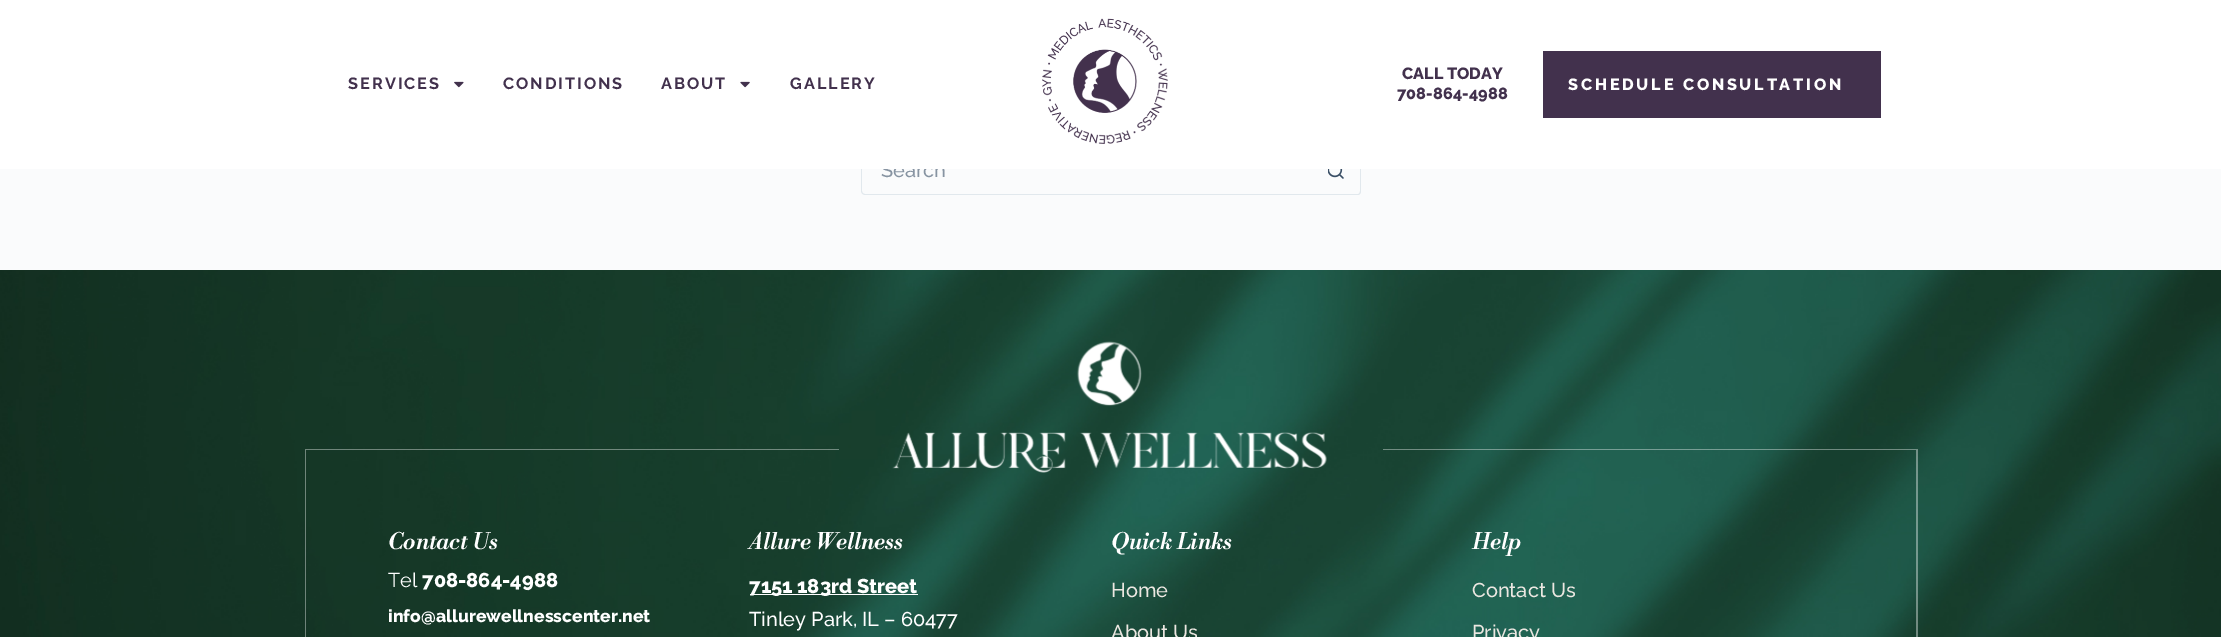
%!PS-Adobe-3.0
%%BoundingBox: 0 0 2221 637
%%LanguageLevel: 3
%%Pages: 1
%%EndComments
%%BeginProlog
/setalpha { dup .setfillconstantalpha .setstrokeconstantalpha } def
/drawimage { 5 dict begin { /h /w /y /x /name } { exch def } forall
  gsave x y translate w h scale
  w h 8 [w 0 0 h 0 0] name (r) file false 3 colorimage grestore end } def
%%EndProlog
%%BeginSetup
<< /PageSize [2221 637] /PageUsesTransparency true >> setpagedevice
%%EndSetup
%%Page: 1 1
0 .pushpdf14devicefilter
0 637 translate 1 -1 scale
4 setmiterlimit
0.98 0.984 0.988 setrgbcolor
0 0 2221 637 rectfill
0.882 0.91 0.929 setrgbcolor
newpath 865 145 moveto 1311 145 lineto 1311 195 lineto 865 195 lineto 863 195 861 193 861 191 curveto 861 149 lineto 861 147 863 145 865 145 curveto closepath 865 146 moveto 1311 146 lineto 1311 194 lineto 865 194 lineto 864 194 862 193 862 191 curveto 862 149 lineto 862 147 864 146 865 146 curveto closepath eofill
newpath 1311 145 moveto 1358 145 lineto 1360 145 1361 147 1361 149 curveto 1361 191 lineto 1361 193 1360 195 1358 195 curveto 1311 195 lineto closepath 1311 146 moveto 1358 146 lineto 1359 146 1360 147 1360 149 curveto 1360 191 lineto 1360 193 1359 194 1358 194 curveto 1311 194 lineto closepath eofill
(images/4.raw) 1328 169 16 10 drawimage
(images/5.raw) 0 270 2221 367 drawimage
(images/6.raw) 892 341 435 132 drawimage
0.39 setalpha
1 setgray
newpath 1918 449 moveto 1918 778 lineto 1916 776 lineto 1916 449 lineto closepath fill
newpath 305 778 moveto 305 449 lineto 306 449 lineto 306 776 lineto closepath fill
306 449 533 1 rectfill
1383 449 533 1 rectfill
1 setalpha
750 594 168 1 rectfill
/Raleway-Medium [20 0 0 -20 0 0] selectfont
0.529 0.58 0.635 setrgbcolor
881 177 moveto (Search) show
1 setgray
0 0 2221 169 rectfill
/Raleway-Bold [16.25 0 0 -16.25 0 0] selectfont
0.259 0.192 0.302 setrgbcolor
790 89 moveto 2 0 (GALLERY) ashow
(images/2.raw) 740 81 10 7 drawimage
661 89 moveto 2 0 (ABOUT) ashow
503 89 moveto 2 0 (CONDITIONS) ashow
(images/1.raw) 454 81 10 7 drawimage
348 89 moveto 2 0 (SERVICES) ashow
1543 51 338 67 rectfill
/Raleway-ExtraBold [16.25 0 0 -16.25 0 0] selectfont
1 setgray
1568 90 moveto 2.75 0 (SCHEDULE CONSULTATION) ashow
0.259 0.192 0.302 setrgbcolor
1397 99 moveto (708-864-4988) show
1402 79 moveto (CALL TODAY) show
(images/3.raw) 1042 18 126 126 drawimage
/LibreBodoni-SemiBoldItalic [22.5 0 0 -22.5 0 0] selectfont
1 setgray
388 549 moveto (Contact Us) show
/Raleway-Regular [20 0 0 -20 0 0] selectfont
388 587 moveto (Tel) show
/Raleway-ExtraBold [20 0 0 -20 0 0] selectfont
422 587 moveto (708-864-4988) show
/Raleway-ExtraBold [17.5 0 0 -17.5 0 0] selectfont
388 622 moveto (info@allurewellnesscenter.net) show
/LibreBodoni-SemiBoldItalic [22.5 0 0 -22.5 0 0] selectfont
749 549 moveto (Allure Wellness) show
/Raleway-ExtraBold [20 0 0 -20 0 0] selectfont
749 593 moveto (7151 183rd Street) show
/Raleway-Medium [20 0 0 -20 0 0] selectfont
749 626 moveto (Tinley Park, IL – 60477) show
/LibreBodoni-SemiBoldItalic [22.5 0 0 -22.5 0 0] selectfont
1111 549 moveto (Quick Links) show
/Raleway-Medium [20 0 0 -20 0 0] selectfont
0.925 0.906 0.882 setrgbcolor
1111 597 moveto (Home) show
1111 639 moveto (About Us) show
/LibreBodoni-SemiBoldItalic [22.5 0 0 -22.5 0 0] selectfont
1 setgray
1472 549 moveto (Help) show
/Raleway-Medium [20 0 0 -20 0 0] selectfont
0.925 0.906 0.882 setrgbcolor
1472 597 moveto (Contact Us) show
1472 639 moveto (Privacy) show
.poppdf14devicefilter showpage
%%EOF
